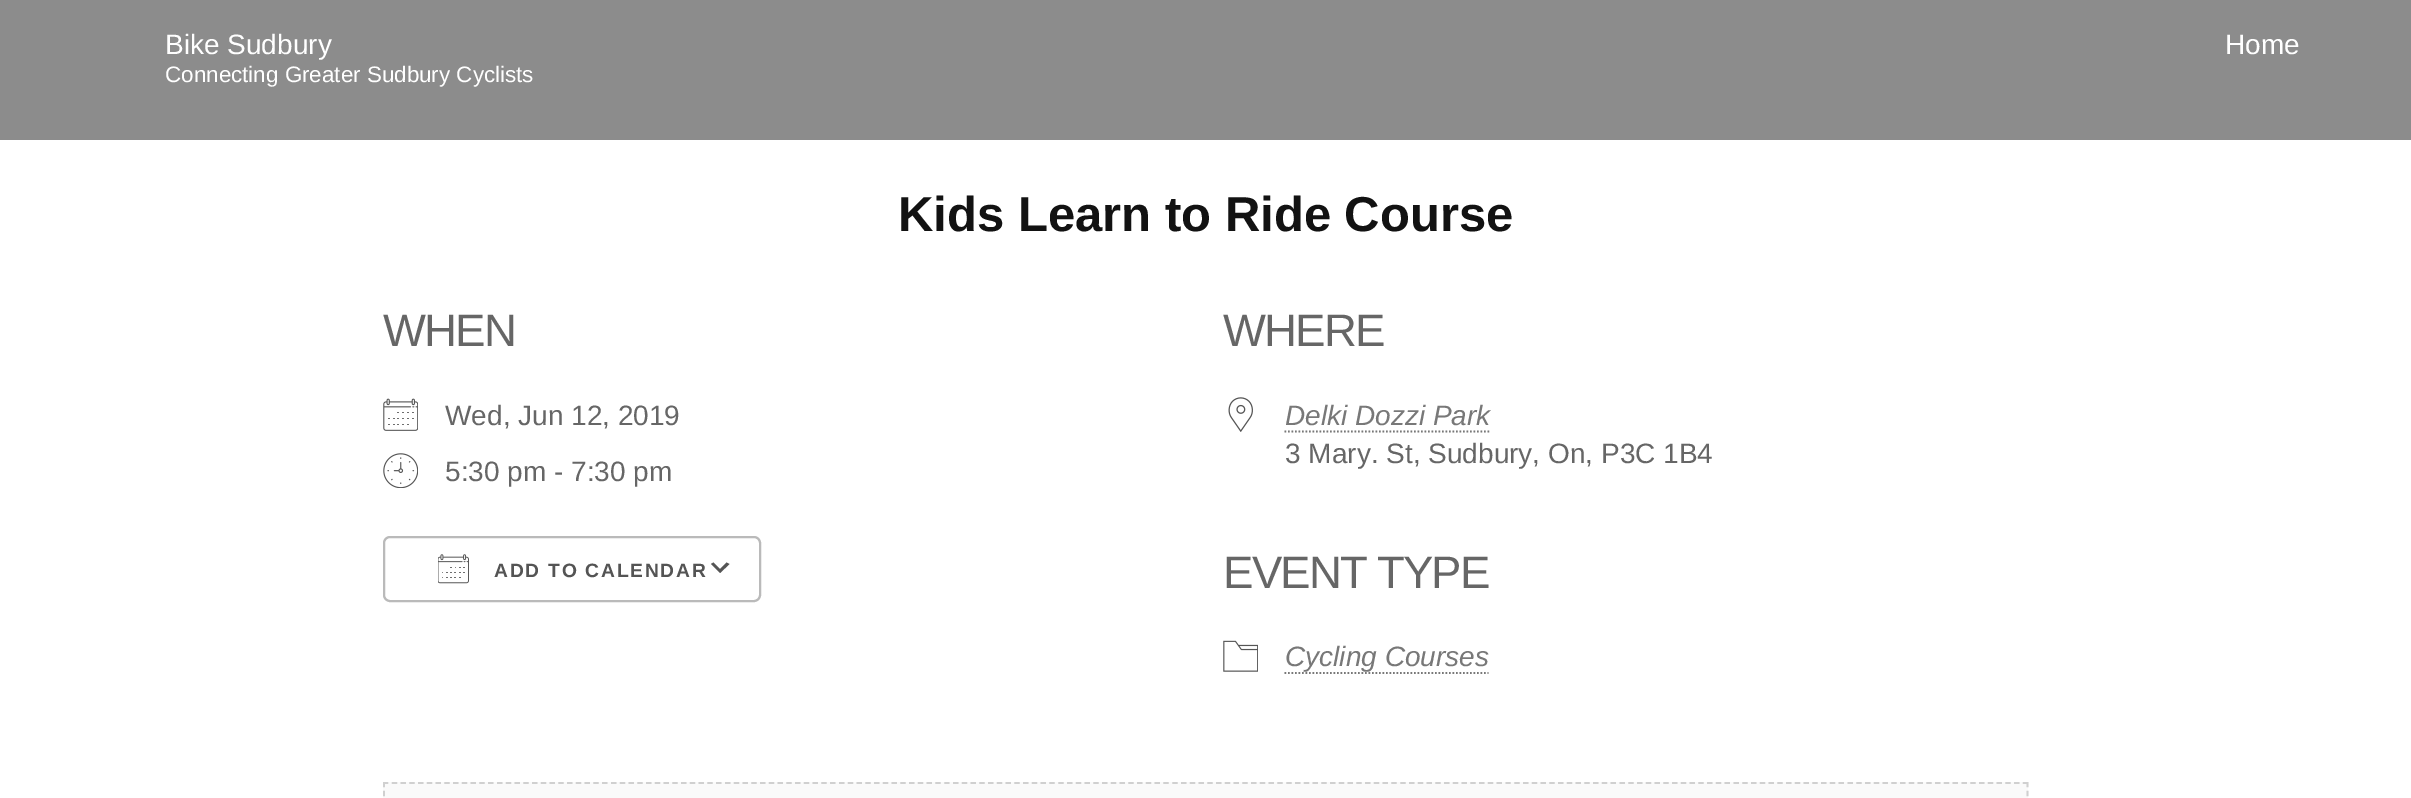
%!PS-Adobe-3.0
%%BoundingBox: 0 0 2411 798
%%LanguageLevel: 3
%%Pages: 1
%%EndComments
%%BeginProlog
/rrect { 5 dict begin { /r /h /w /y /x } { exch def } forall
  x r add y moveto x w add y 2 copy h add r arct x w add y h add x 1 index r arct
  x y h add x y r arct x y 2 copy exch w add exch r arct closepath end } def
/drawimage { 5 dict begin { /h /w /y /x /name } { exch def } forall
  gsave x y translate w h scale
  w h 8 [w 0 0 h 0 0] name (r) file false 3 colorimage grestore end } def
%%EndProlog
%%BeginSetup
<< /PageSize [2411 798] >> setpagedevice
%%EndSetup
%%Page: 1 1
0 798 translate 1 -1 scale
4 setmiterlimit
1 setgray
0 0 2411 798 rectfill
0.549 setgray
0 0 2411 140 rectfill
(images/1.raw) 383 398 35 33 drawimage
(images/2.raw) 383 453 35 35 drawimage
0.333 setgray
newpath 713.5 562.5 moveto 720 569 lineto 726.5 562.5 lineto 729.5 564 lineto 720 573 lineto 711 564 lineto closepath fill
0.729 setgray
2 setlinewidth
384 537 376 64 6 rrect stroke
(images/3.raw) 438 554 31 30 drawimage
(images/4.raw) 1228 397 25 35 drawimage
0.471 setgray
1.8 setlinewidth
[1.75 1.75] 0 setdash
newpath 1284.5 431.5 moveto 1490 431.5 lineto stroke
(images/5.raw) 1223 640 35 32 drawimage
newpath 1284.5 673 moveto 1488.5 673 lineto stroke
0.98 setgray
383 782 1645 16 rectfill
0.816 setgray
[5.25 3.52] 0 setdash
newpath 383 783 moveto 2028 783 lineto stroke
[5.25 3.55] 0 setdash
newpath 2027.5 782 moveto 2027.5 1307 lineto stroke
newpath 384 782 moveto 384 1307 lineto stroke
/LiberationSans-Regular [28 0 0 -28 0 0] selectfont
1 setgray
165 54 moveto (Bike Sudbury) show
/LiberationSans-Regular [22.4 0 0 -22.4 0 0] selectfont
165 82 moveto (Connecting Greater Sudbury Cyclists) show
/LiberationSans-Regular [28 0 0 -28 0 0] selectfont
2225 54 moveto (Home) show
/LiberationSans-Bold [49 0 0 -49 0 0] selectfont
0.071 setgray
898 231 moveto (Kids Learn to Ride Course) show
/LiberationSans-Regular [45.5 0 0 -45.5 0 0] selectfont
0.4 setgray
383 346 moveto -1.75 0 (WHEN) ashow
/LiberationSans-Regular [28 0 0 -28 0 0] selectfont
445 425 moveto (Wed, Jun 12, 2019) show
445 481 moveto (5:30 pm - 7:30 pm) show
/LiberationSans-Bold [19.25 0 0 -19.25 0 0] selectfont
0.329 setgray
494 577 moveto 1.75 0 (ADD TO CALENDAR) ashow
/LiberationSans-Regular [45.5 0 0 -45.5 0 0] selectfont
0.4 setgray
1223 346 moveto -1.75 0 (WHERE) ashow
/LiberationSans-Italic [28 0 0 -28 0 0] selectfont
0.471 setgray
1285 425 moveto (Delki Dozzi Park) show
/LiberationSans-Regular [28 0 0 -28 0 0] selectfont
0.4 setgray
1285 463 moveto (3 Mary. St, Sudbury, On, P3C 1B4) show
/LiberationSans-Regular [45.5 0 0 -45.5 0 0] selectfont
1223 588 moveto -1.75 0 (EVENT TYPE) ashow
/LiberationSans-Italic [28 0 0 -28 0 0] selectfont
0.471 setgray
1285 666 moveto (Cycling Courses) show
showpage
%%EOF
